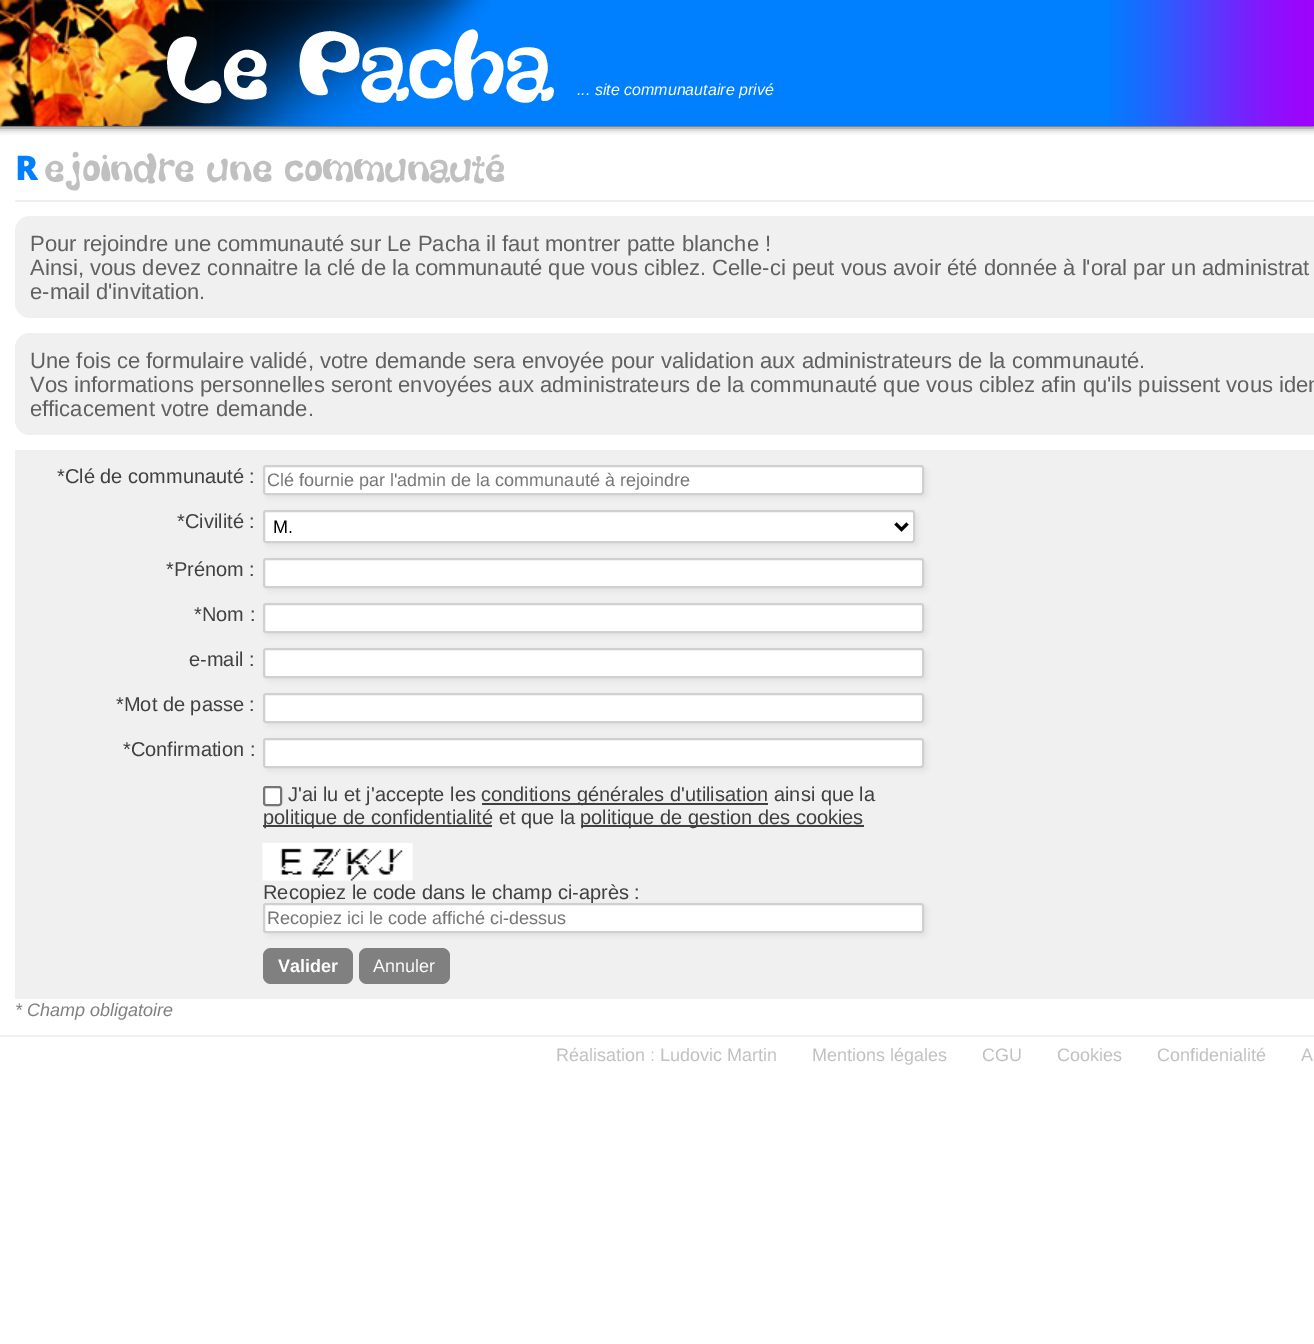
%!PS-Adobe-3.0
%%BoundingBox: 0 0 1314 1344
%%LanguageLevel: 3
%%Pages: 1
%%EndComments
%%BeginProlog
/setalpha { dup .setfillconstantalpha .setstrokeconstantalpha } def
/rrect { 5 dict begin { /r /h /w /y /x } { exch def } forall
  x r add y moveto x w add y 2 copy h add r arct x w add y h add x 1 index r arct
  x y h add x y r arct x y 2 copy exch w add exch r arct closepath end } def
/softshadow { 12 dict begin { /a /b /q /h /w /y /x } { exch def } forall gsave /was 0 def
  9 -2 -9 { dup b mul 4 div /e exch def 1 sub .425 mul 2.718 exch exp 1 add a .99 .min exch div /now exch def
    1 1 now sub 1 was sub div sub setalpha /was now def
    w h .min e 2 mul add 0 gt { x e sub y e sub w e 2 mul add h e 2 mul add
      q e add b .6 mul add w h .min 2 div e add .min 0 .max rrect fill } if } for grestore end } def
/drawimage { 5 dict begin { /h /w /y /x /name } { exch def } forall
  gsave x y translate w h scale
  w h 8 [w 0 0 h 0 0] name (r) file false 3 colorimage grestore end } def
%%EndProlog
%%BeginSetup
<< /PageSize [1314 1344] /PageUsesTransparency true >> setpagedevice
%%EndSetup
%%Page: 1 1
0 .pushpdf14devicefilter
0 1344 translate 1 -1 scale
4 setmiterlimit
1 setgray
0 0 1314 1344 rectfill
0 setgray
0 0 1314 126 0 4 1 softshadow
0 0.498 1 setrgbcolor
0 0 1109 126 rectfill
(images/1.raw) 1109 0 205 126 drawimage
(images/2.raw) 0 0 490 126 drawimage
0.941 setgray
15 200 1299 2 rectfill
15 216 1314 102 15 rrect fill
15 333 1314 102 15 rrect fill
15 450 1299 549 rectfill
0 setgray
266 468 661 30 3 3 0.05 softshadow
1 setgray
264 466 659 28 2 rrect gsave fill grestore
0.816 setgray
2 setlinewidth
stroke
0 setgray
266 513 652 33 3 3 0.05 softshadow
1 setgray
264 511 650 31 2 rrect gsave fill grestore
0.816 setgray
stroke
0 setgray
3 setlinewidth
newpath 895.5 523.5 moveto 901.5 529.5 lineto 907.5 523.5 lineto stroke
266 561 661 30 3 3 0.05 softshadow
1 setgray
264 559 659 28 2 rrect gsave fill grestore
0.816 setgray
2 setlinewidth
stroke
0 setgray
266 606 661 30 3 3 0.05 softshadow
1 setgray
264 604 659 28 2 rrect gsave fill grestore
0.816 setgray
stroke
0 setgray
266 651 661 30 3 3 0.05 softshadow
1 setgray
264 649 659 28 2 rrect gsave fill grestore
0.816 setgray
stroke
0 setgray
266 696 661 30 3 3 0.05 softshadow
1 setgray
264 694 659 28 2 rrect gsave fill grestore
0.816 setgray
stroke
0 setgray
266 741 661 30 3 3 0.05 softshadow
1 setgray
264 739 659 28 2 rrect gsave fill grestore
0.816 setgray
stroke
1 setgray
264 787 17 18 2 rrect gsave fill grestore
0.463 setgray
stroke
0.251 setgray
482 803 286 2 rectfill
263 825 229 2 rectfill
581 825 283 2 rectfill
(images/3.raw) 262 843 151 38 drawimage
0 setgray
266 906 661 30 3 3 0.05 softshadow
0.502 setgray
263 948 90 36 8 rrect fill
359 948 91 36 8 rrect fill
0.941 setgray
0 1035 1314 2 rectfill
/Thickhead-Medium [80 0 0 -80 0 0] selectfont
1 setgray
173 95 moveto (Le Pacha) show
/LiberationSans-Italic [16 0 0 -16 0 0] selectfont
577 95 moveto (... site communautaire privé) show
/NotoSans-Black [34 0 0 -34 0 0] selectfont
0 0.498 1 setrgbcolor
15 180 moveto (R) show
/Thickhead-Medium [34 0 0 -34 0 0] selectfont
0.753 setgray
44 180 moveto (ejoindre une communauté) show
/LiberationSans-Regular [22 0 0 -22 0 0] selectfont
0.376 setgray
30 251 moveto (Pour rejoindre une communauté sur Le Pacha il faut montrer patte blanche !) show
30 275 moveto (Ainsi, vous devez connaitre la clé de la communauté que vous ciblez. Celle-ci peut vous avoir été donnée à l'oral par un administrat) show
30 299 moveto (e-mail d'invitation.) show
30 368 moveto (Une fois ce formulaire validé, votre demande sera envoyée pour validation aux administrateurs de la communauté.) show
30 392 moveto (Vos informations personnelles seront envoyées aux administrateurs de la communauté que vous ciblez afin qu'ils puissent vous iden) show
30 416 moveto (efficacement votre demande.) show
/LiberationSans-Regular [20 0 0 -20 0 0] selectfont
0.251 setgray
57 483 moveto (*Clé de communauté :) show
/LiberationSans-Regular [18 0 0 -18 0 0] selectfont
0.459 setgray
267 486 moveto (Clé fournie par l'admin de la communauté à rejoindre) show
/LiberationSans-Regular [20 0 0 -20 0 0] selectfont
0.251 setgray
177 528 moveto (*Civilité :) show
/LiberationSans-Regular [18 0 0 -18 0 0] selectfont
0 setgray
273 533 moveto (M.) show
/LiberationSans-Regular [20 0 0 -20 0 0] selectfont
0.251 setgray
166 576 moveto (*Prénom :) show
194 621 moveto (*Nom :) show
189 666 moveto (e-mail :) show
116 711 moveto (*Mot de passe :) show
123 756 moveto (*Confirmation :) show
288 801 moveto (J'ai lu et j'accepte les) show
481 801 moveto (conditions générales d'utilisation ainsi que la) show
263 824 moveto (politique de confidentialité et que la) show
580 824 moveto (politique de gestion des cookies) show
263 899 moveto (Recopiez le code dans le champ ci-après :) show
1 setgray
264 904 659 28 2 rrect gsave fill grestore
0.816 setgray
stroke
/LiberationSans-Regular [18 0 0 -18 0 0] selectfont
0.459 setgray
267 924 moveto (Recopiez ici le code affiché ci-dessus) show
/LiberationSans-Bold [18 0 0 -18 0 0] selectfont
1 setgray
278 972 moveto (Valider) show
/LiberationSans-Regular [18 0 0 -18 0 0] selectfont
373 972 moveto (Annuler) show
/LiberationSans-Italic [18 0 0 -18 0 0] selectfont
0.502 setgray
15 1016 moveto (* Champ obligatoire) show
/LiberationSans-Regular [18 0 0 -18 0 0] selectfont
0.753 setgray
556 1061 moveto (Réalisation : Ludovic Martin) show
812 1061 moveto (Mentions légales) show
982 1061 moveto (CGU) show
1057 1061 moveto (Cookies) show
1157 1061 moveto (Confidenialité) show
1301 1061 moveto (A) show
.poppdf14devicefilter showpage
%%EOF
